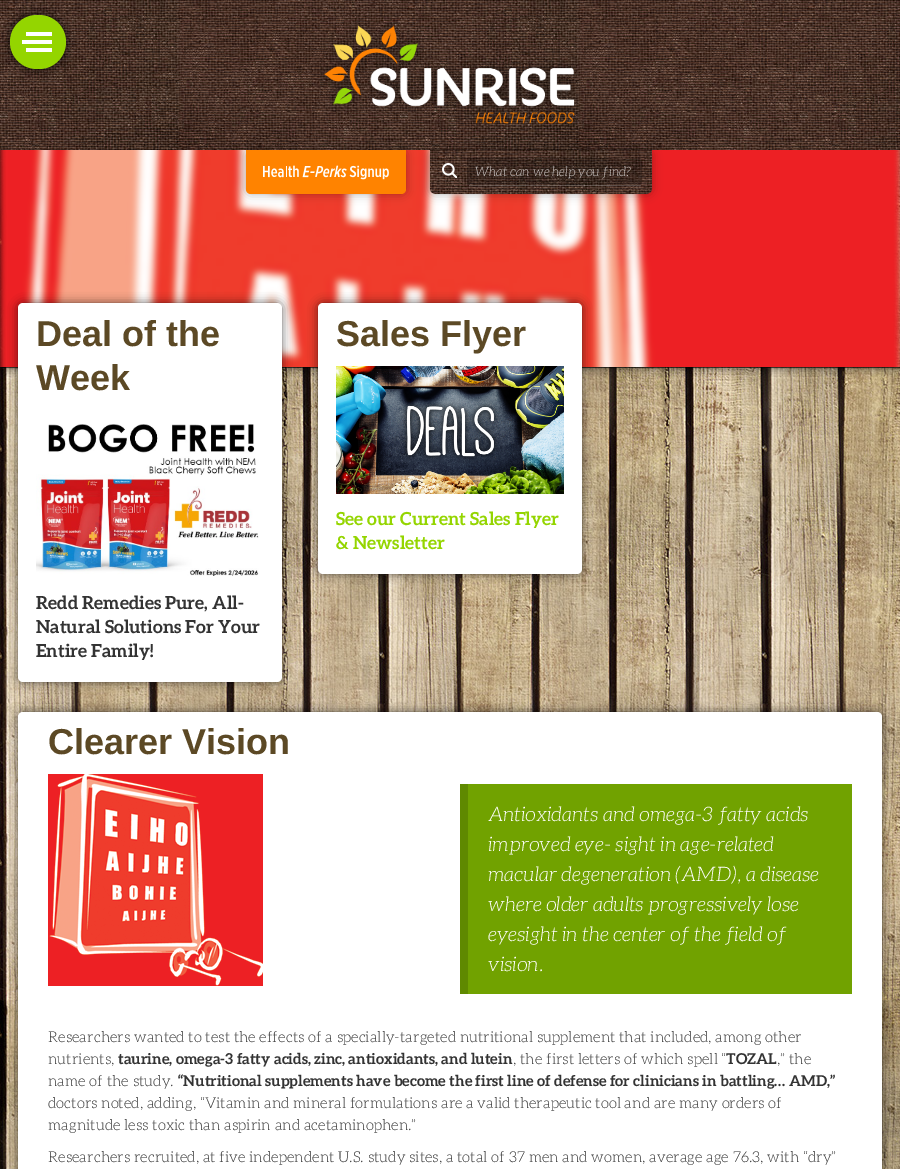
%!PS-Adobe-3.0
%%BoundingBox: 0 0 900 1169
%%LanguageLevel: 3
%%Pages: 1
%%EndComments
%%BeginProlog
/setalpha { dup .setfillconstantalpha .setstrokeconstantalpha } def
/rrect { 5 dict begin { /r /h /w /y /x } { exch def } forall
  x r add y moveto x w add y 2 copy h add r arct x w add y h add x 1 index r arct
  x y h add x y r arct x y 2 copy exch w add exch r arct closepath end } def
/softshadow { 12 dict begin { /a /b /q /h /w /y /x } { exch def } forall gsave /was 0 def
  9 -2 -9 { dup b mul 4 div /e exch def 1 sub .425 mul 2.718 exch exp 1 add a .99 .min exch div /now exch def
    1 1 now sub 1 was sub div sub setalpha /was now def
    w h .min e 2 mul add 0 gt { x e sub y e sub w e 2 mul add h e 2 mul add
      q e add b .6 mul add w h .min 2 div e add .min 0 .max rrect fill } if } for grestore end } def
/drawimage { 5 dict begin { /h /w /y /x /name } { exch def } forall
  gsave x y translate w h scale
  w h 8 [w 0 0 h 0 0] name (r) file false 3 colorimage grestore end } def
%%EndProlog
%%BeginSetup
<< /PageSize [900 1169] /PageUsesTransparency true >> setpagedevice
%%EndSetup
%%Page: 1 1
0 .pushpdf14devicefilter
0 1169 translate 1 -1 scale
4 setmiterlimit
1 setgray
0 0 900 1169 rectfill
(images/1.raw) 0 150 900 1019 drawimage
gsave
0 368 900 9 rectclip
0 setgray
0 0 900 368 0 5 0.6 softshadow
grestore
(images/2.raw) 0 0 900 150 drawimage
0 setgray
10 15 56 54 27 5 0.7 softshadow
0.58 0.835 0 setrgbcolor
10 15 56 54 27 rrect fill
1 setgray
22 40 30 4 rectfill
26 32 26 4 rectfill
26 48 26 4 rectfill
(images/3.raw) 320 21 260 107 drawimage
0.75 setalpha
0 setgray
0 367 900 1 rectfill
1 setalpha
(images/4.raw) 0 150 900 217 drawimage
246 150 160 44 5 5 0.3 softshadow
1 0.514 0 setrgbcolor
newpath 246 150 moveto 406 150 lineto 406 189 lineto 406 192 404 194 401 194 curveto 251 194 lineto 248 194 246 192 246 189 curveto closepath fill
(images/5.raw) 263 165 126 15 drawimage
0 setgray
430 150 222 44 5 5 0.3 softshadow
(images/6.raw) 430 150 222 44 drawimage
(images/7.raw) 442 163 15 15 drawimage
0.2 setalpha
467 158 175 28 3 rrect fill
1 setgray
469 185 172 1 rectfill
1 setalpha
0 setgray
18 303 264 379 5 5 0.6 softshadow
1 setgray
18 303 264 379 5 rrect fill
(images/8.raw) 36 424 223 152 drawimage
0 setgray
318 303 264 271 5 5 0.6 softshadow
1 setgray
318 303 264 271 5 rrect fill
(images/9.raw) 336 366 228 128 drawimage
0 setgray
18 712 864 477 5 5 0.6 softshadow
1 setgray
newpath 23 712 moveto 877 712 lineto 880 712 882 714 882 717 curveto 882 1169 lineto 18 1169 lineto 18 717 lineto 18 714 20 712 23 712 curveto closepath fill
(images/10.raw) 48 774 215 212 drawimage
0.443 0.635 0 setrgbcolor
468 784 384 210 rectfill
0.373 0.537 0 setrgbcolor
460 784 8 210 rectfill
/Aleo-LightItalic [13 0 0 -13 0 0] selectfont
0.808 0.788 0.78 setrgbcolor
475 176 moveto (What can we help you find?) show
/LiberationSans-Bold [36 0 0 -36 0 0] selectfont
0.361 0.286 0.145 setrgbcolor
36 346 moveto (Deal of the) show
36 390 moveto (Week) show
/Aleo-Bold [18 0 0 -18 0 0] selectfont
0.2 setgray
36 609 moveto (Redd Remedies Pure, All-) show
36 633 moveto (Natural Solutions For Your) show
36 657 moveto (Entire Family!) show
/LiberationSans-Bold [36 0 0 -36 0 0] selectfont
0.361 0.286 0.145 setrgbcolor
336 346 moveto (Sales Flyer) show
/Aleo-Bold [18 0 0 -18 0 0] selectfont
0.58 0.835 0 setrgbcolor
336 525 moveto (See our Current Sales Flyer) show
336 549 moveto (& Newsletter) show
/LiberationSans-Bold [36 0 0 -36 0 0] selectfont
0.361 0.286 0.145 setrgbcolor
48 754 moveto (Clearer Vision) show
/Aleo-LightItalic [20 0 0 -20 0 0] selectfont
1 setgray
488 821 moveto (Antioxidants and omega-3 fatty acids) show
488 851 moveto (improved eye- sight in age-related) show
488 881 moveto (macular degeneration \(AMD\), a disease) show
488 911 moveto (where older adults progressively lose) show
488 941 moveto (eyesight in the center of the field of) show
488 971 moveto (vision.) show
/Aleo-Light [15 0 0 -15 0 0] selectfont
0.2 setgray
48 1042 moveto (Researchers wanted to test the effects of a specially-targeted nutritional supplement that included, among other) show
48 1064 moveto (nutrients,) show
/Aleo-Bold [15 0 0 -15 0 0] selectfont
118 1064 moveto (taurine, omega-3 fatty acids, zinc, antioxidants, and lutein) show
/Aleo-Light [15 0 0 -15 0 0] selectfont
513 1064 moveto (, the first letters of which spell “) show
/Aleo-Bold [15 0 0 -15 0 0] selectfont
726 1064 moveto (TOZAL) show
/Aleo-Light [15 0 0 -15 0 0] selectfont
777 1064 moveto (,” the) show
48 1086 moveto (name of the study.) show
/Aleo-Bold [15 0 0 -15 0 0] selectfont
178 1086 moveto (“Nutritional supplements have become the first line of defense for clinicians in battling… AMD,”) show
/Aleo-Light [15 0 0 -15 0 0] selectfont
48 1108 moveto (doctors noted, adding, “Vitamin and mineral formulations are a valid therapeutic tool and are many orders of) show
48 1130 moveto (magnitude less toxic than aspirin and acetaminophen.”) show
48 1162 moveto (Researchers recruited, at five independent U.S. study sites, a total of 37 men and women, average age 76.3, with “dry”) show
.poppdf14devicefilter showpage
%%EOF
